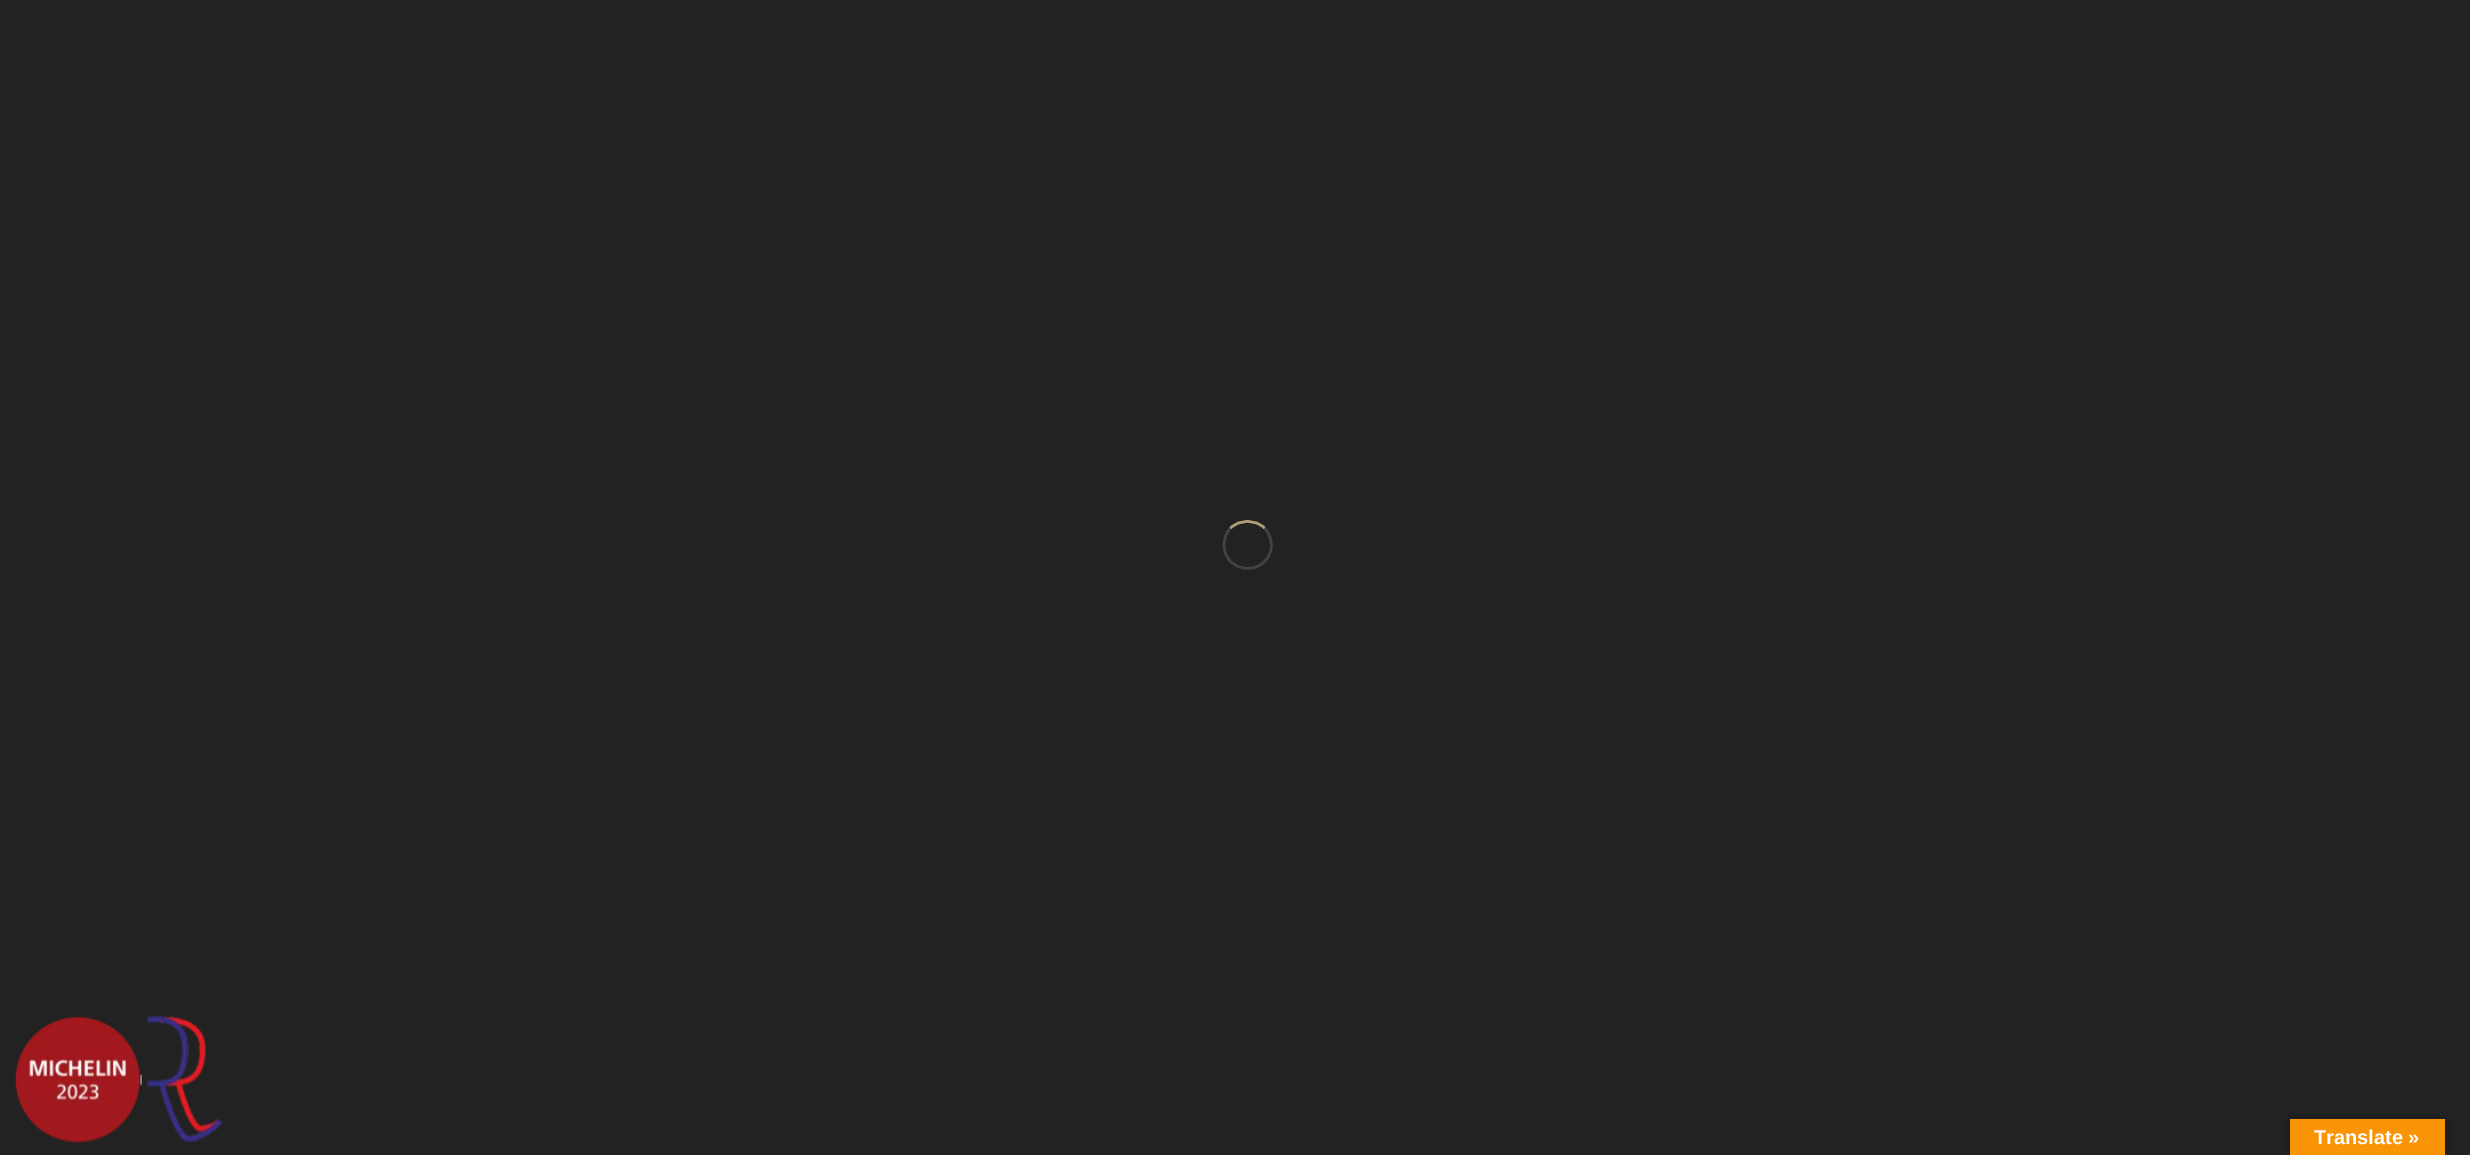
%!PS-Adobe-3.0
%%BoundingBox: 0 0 2470 1155
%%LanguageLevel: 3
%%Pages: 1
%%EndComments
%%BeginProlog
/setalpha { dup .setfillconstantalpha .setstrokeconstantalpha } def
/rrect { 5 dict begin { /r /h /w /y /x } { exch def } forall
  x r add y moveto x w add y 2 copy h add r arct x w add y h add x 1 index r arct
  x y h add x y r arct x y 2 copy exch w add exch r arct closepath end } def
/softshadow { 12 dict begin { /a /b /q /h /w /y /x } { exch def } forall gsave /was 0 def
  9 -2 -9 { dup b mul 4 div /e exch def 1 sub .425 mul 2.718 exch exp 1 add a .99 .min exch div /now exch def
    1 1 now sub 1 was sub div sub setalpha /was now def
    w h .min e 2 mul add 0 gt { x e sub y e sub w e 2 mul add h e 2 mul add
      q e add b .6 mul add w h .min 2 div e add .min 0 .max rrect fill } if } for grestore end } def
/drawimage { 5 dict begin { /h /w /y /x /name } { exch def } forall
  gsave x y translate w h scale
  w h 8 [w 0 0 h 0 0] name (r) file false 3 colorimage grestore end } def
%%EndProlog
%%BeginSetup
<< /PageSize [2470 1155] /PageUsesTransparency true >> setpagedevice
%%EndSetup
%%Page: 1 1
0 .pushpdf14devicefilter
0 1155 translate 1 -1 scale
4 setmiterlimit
0.133 setgray
0 0 2470 1155 rectfill
0.698 0.616 0.475 setrgbcolor
2.5 setlinewidth
newpath 1230.5 528 moveto 1240 519 1255 519 1264.5 528 curveto stroke
0.15 setalpha
1 setgray
newpath 1264.5 528 moveto 1270 534 1272.5 542 1271 549.5 curveto 1265 577.5 1224 573.5 1224 545 curveto 1224 538.5 1226.5 532.5 1230.5 528 curveto stroke
1 setalpha
(images/1.raw) 14 1016 209 127 drawimage
0 setgray
2290 1119 155 36 0 5.5 0.3 softshadow
0.973 0.58 0.024 setrgbcolor
2290 1119 155 36 rectfill
/LiberationSans-Bold [20 0 0 -20 0 0] selectfont
1 setgray
2314 1144 moveto (Translate ») show
.poppdf14devicefilter showpage
%%EOF
